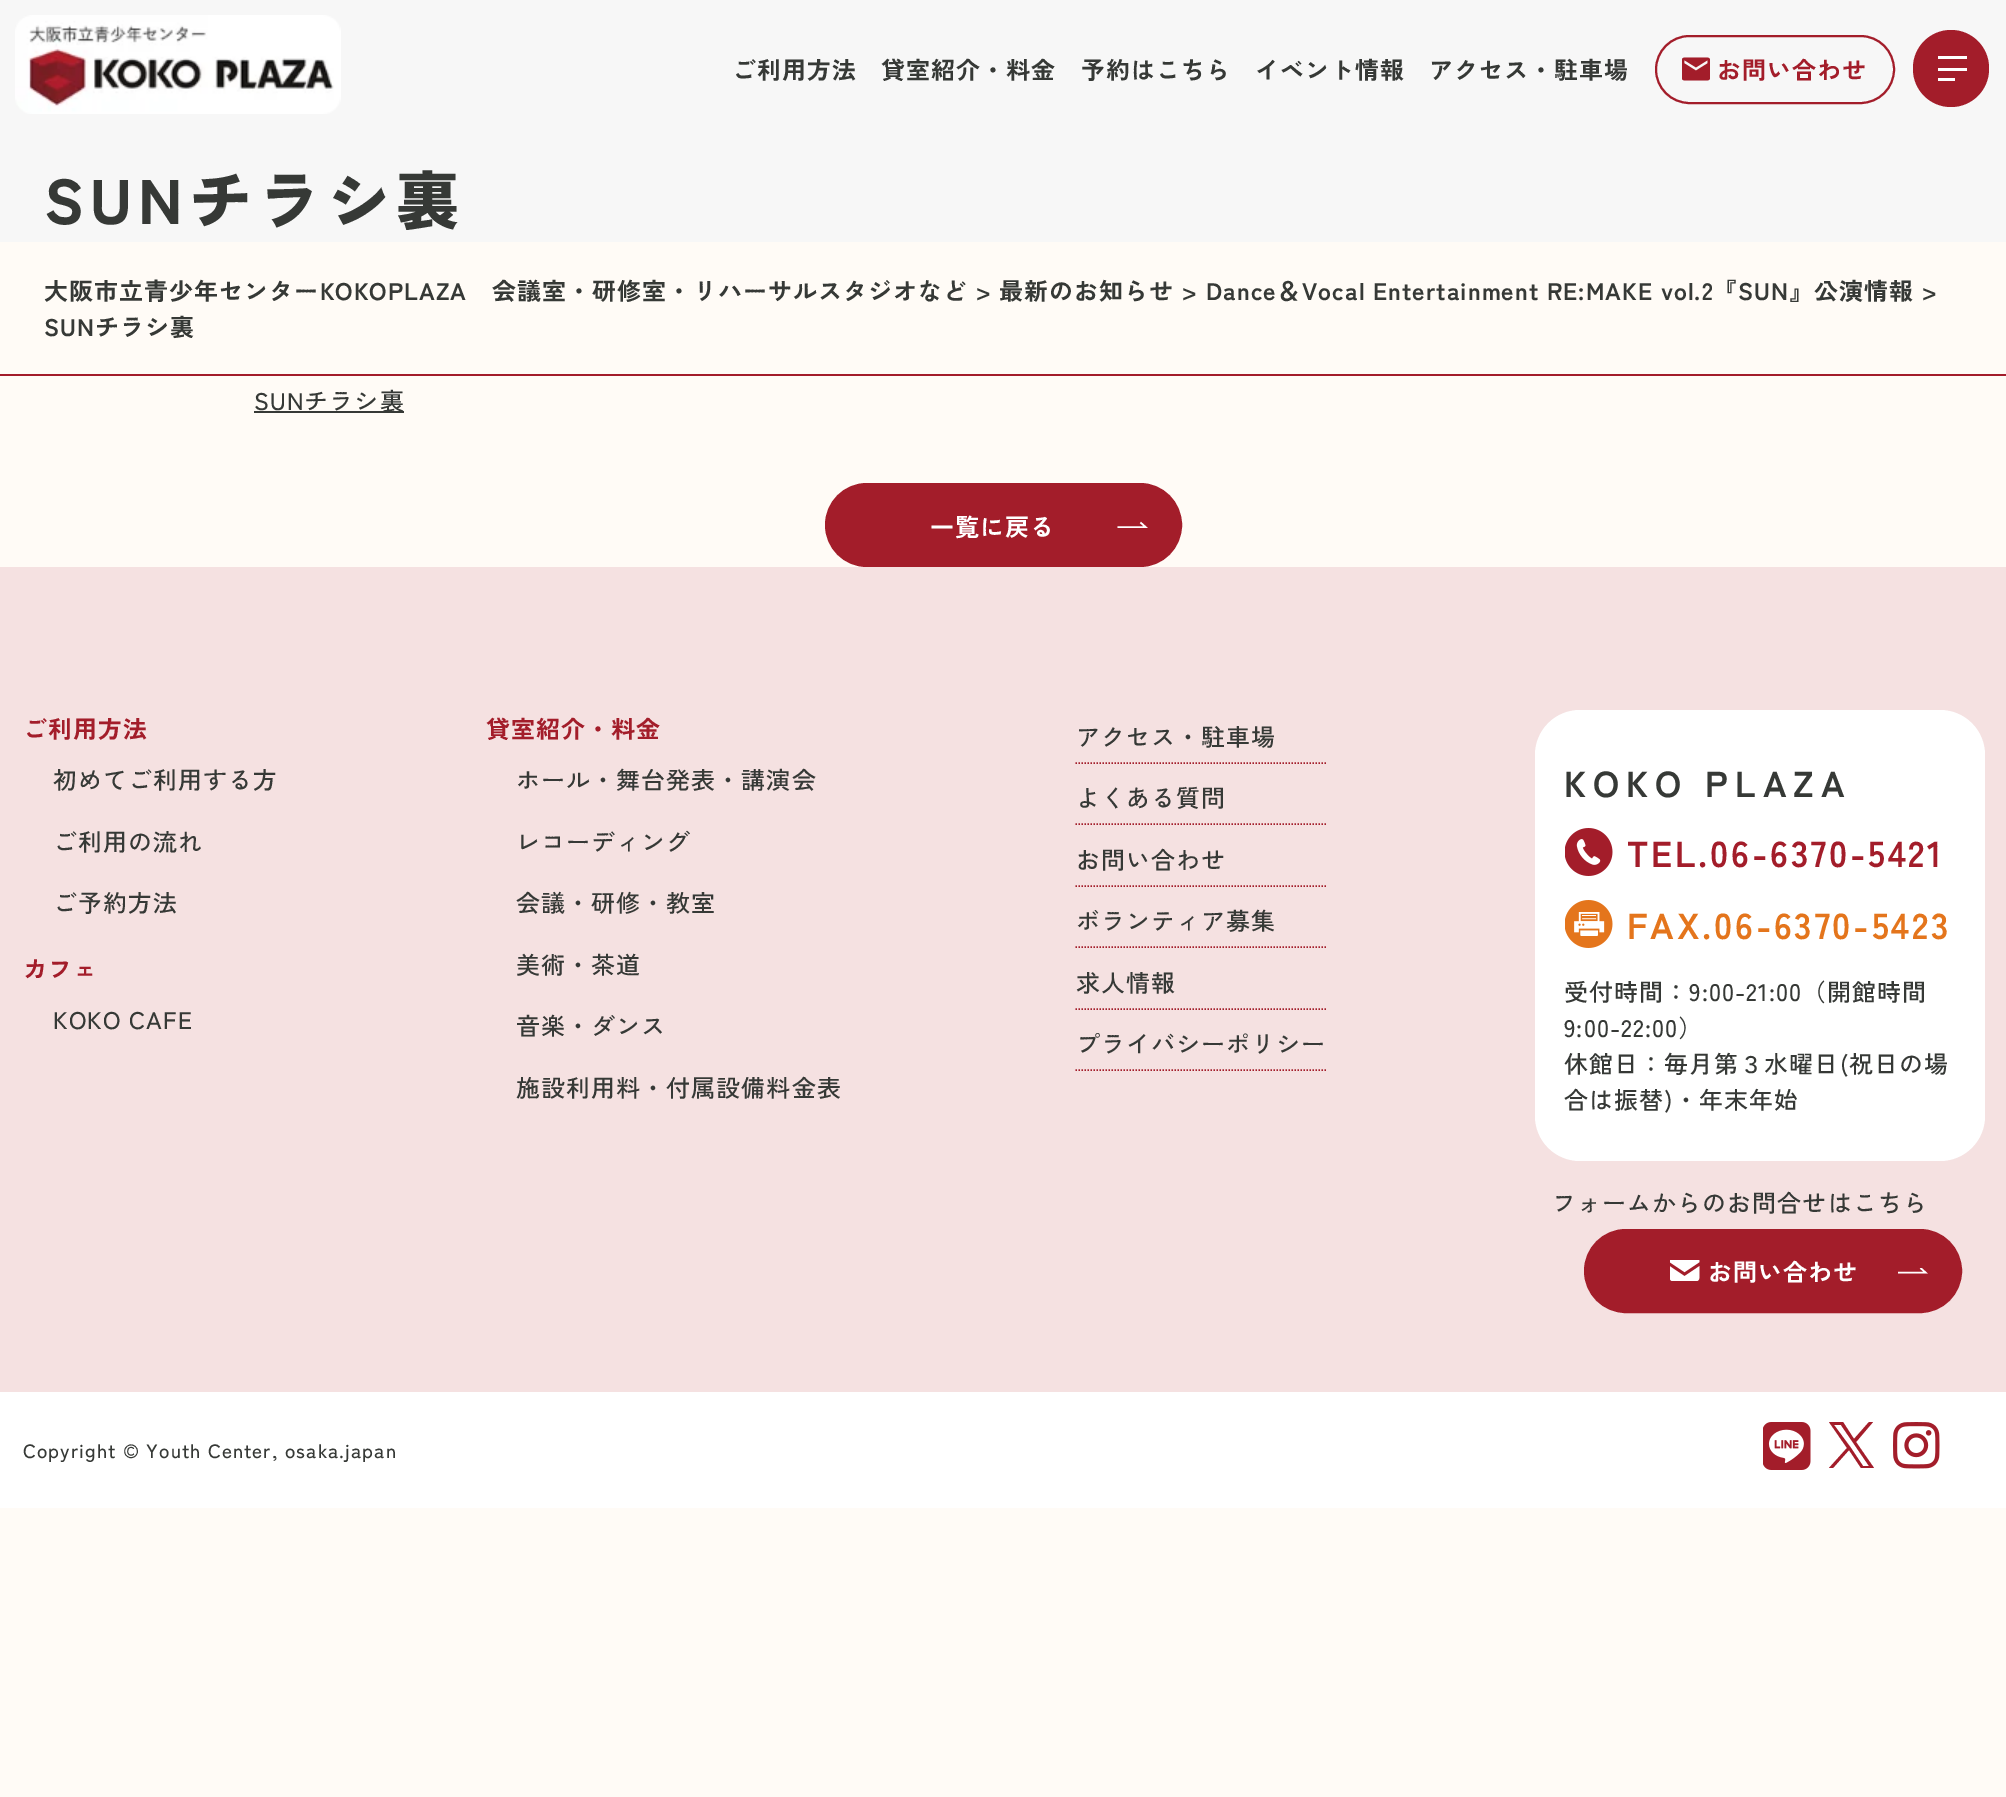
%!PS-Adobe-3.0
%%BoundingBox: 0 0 2006 1797
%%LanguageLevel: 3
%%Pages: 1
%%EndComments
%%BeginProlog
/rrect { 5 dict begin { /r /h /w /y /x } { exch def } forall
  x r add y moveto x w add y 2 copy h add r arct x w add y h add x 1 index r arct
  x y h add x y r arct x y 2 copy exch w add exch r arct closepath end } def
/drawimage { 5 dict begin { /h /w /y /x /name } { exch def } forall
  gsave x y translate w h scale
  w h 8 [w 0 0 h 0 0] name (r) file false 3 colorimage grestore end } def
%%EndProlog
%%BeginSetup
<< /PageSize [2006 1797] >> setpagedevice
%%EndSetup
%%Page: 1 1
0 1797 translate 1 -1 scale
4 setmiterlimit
1 0.984 0.965 setrgbcolor
0 0 2006 1797 rectfill
0.969 setgray
0 0 2006 242 rectfill
(images/1.raw) 15 15 326 99 drawimage
0.639 0.114 0.165 setrgbcolor
2 setlinewidth
1656 36 238 67 33.5 rrect stroke
(images/2.raw) 1682 57 28 24 drawimage
1913 30 76 77 38 rrect fill
1 setgray
1938 56 29 3 rectfill
1938 68 29 3 rectfill
1938 78 17 3 rectfill
0.639 0.11 0.165 setrgbcolor
0 374 2006 2 rectfill
0.212 0.224 0.212 setrgbcolor
254 411 150 2 rectfill
0.639 0.114 0.165 setrgbcolor
827.5 485.5 352 79 39.5 rrect gsave fill grestore
5 setlinewidth
stroke
1 setgray
1.6 setlinewidth
newpath 1117.5 527 moveto 1145.5 527 lineto 1140.5 522.5 lineto stroke
0.961 0.882 0.882 setrgbcolor
0 567 2006 825 rectfill
0.639 0.114 0.165 setrgbcolor
1.5 setlinewidth
[1.5 1.5] 0 setdash
newpath 1075.5 763 moveto 1326 763 lineto stroke
newpath 1075.5 824 moveto 1326 824 lineto stroke
newpath 1075.5 886 moveto 1326 886 lineto stroke
newpath 1075.5 947 moveto 1326 947 lineto stroke
newpath 1075.5 1009 moveto 1326 1009 lineto stroke
newpath 1075.5 1070 moveto 1326 1070 lineto stroke
1 setgray
1535 710 450 451 45 rrect fill
(images/3.raw) 1565 828 48 48 drawimage
(images/4.raw) 1565 900 48 48 drawimage
0.639 0.114 0.165 setrgbcolor
1586.5 1231.5 373 79 39.5 rrect gsave fill grestore
5 setlinewidth
[] 0 setdash
stroke
(images/5.raw) 1670 1260 30 21 drawimage
gsave
1898 1268 30 6 rectclip
1 setgray
1.6 setlinewidth
newpath 1897.5 1272.5 moveto 1925.5 1272.5 lineto 1920.5 1268 lineto stroke
grestore
1 setgray
0 1392 2006 116 rectfill
(images/6.raw) 1763 1422 48 48 drawimage
0.639 0.114 0.165 setrgbcolor
newpath 1856 1442 moveto 1873 1422 lineto 1869 1422 lineto 1854 1439 lineto 1843 1422 lineto 1829 1422 lineto 1847 1448 lineto 1829 1468 lineto 1833 1468 lineto 1849 1450 lineto 1861 1468 lineto 1874 1468 lineto closepath 1851 1448 moveto 1834 1425 lineto 1841 1425 lineto 1869 1466 lineto 1863 1466 lineto closepath fill
(images/7.raw) 1893 1422 47 47 drawimage
/ZenKakuGothicNew-Bold [24 0 0 -24 0 0] selectfont
0.212 0.224 0.212 setrgbcolor
732 79 moveto 1.05 0 (ご利用方法) ashow
881 79 moveto 1.05 0 (貸室紹介・料金) ashow
1081 79 moveto 1.05 0 (予約はこちら) ashow
1255 79 moveto 1.05 0 (イベント情報) ashow
1429 79 moveto 1.05 0 (アクセス・駐車場) ashow
0.639 0.114 0.165 setrgbcolor
1717 79 moveto 1.05 0 (お問い合わせ) ashow
/ZenKakuGothicNew-Black [63 0 0 -63 0 0] selectfont
0.212 0.224 0.212 setrgbcolor
44 224 moveto 6.25 0 (SUNチラシ裏) ashow
/ZenKakuGothicNew-Bold [24 0 0 -24 0 0] selectfont
44 300 moveto 1.05 0 (大阪市立青少年センターKOKOPLAZA　会議室・研修室・リハーサルスタジオなど > 最新のお知らせ > Dance＆Vocal Entertainment RE:MAKE vol.2『SUN』公演情報 >) ashow
44 336 moveto 1.05 0 (SUNチラシ裏) ashow
/ZenKakuGothicNew-Medium [24 0 0 -24 0 0] selectfont
254 410 moveto 1.05 0 (SUNチラシ裏) ashow
/ZenKakuGothicNew-Bold [24 0 0 -24 0 0] selectfont
1 setgray
930 536 moveto 1.05 0 (一覧に戻る) ashow
0.639 0.114 0.165 setrgbcolor
23 738 moveto 1.05 0 (ご利用方法) ashow
/ZenKakuGothicNew-Medium [24 0 0 -24 0 0] selectfont
0.212 0.224 0.212 setrgbcolor
53 789 moveto 1.05 0 (初めてご利用する方) ashow
53 851 moveto 1.05 0 (ご利用の流れ) ashow
53 912 moveto 1.05 0 (ご予約方法) ashow
/ZenKakuGothicNew-Bold [24 0 0 -24 0 0] selectfont
0.639 0.114 0.165 setrgbcolor
23 978 moveto 1.05 0 (カフェ) ashow
/ZenKakuGothicNew-Medium [24 0 0 -24 0 0] selectfont
0.212 0.224 0.212 setrgbcolor
53 1029 moveto 1.05 0 (KOKO CAFE) ashow
/ZenKakuGothicNew-Bold [24 0 0 -24 0 0] selectfont
0.639 0.114 0.165 setrgbcolor
486 738 moveto 1.05 0 (貸室紹介・料金) ashow
/ZenKakuGothicNew-Medium [24 0 0 -24 0 0] selectfont
0.212 0.224 0.212 setrgbcolor
516 789 moveto 1.05 0 (ホール・舞台発表・講演会) ashow
516 851 moveto 1.05 0 (レコーディング) ashow
516 912 moveto 1.05 0 (会議・研修・教室) ashow
516 974 moveto 1.05 0 (美術・茶道) ashow
516 1035 moveto 1.05 0 (音楽・ダンス) ashow
516 1097 moveto 1.05 0 (施設利用料・付属設備料金表) ashow
1076 746 moveto 1.05 0 (アクセス・駐車場) ashow
1076 807 moveto 1.05 0 (よくある質問) ashow
1076 869 moveto 1.05 0 (お問い合わせ) ashow
1076 930 moveto 1.05 0 (ボランティア募集) ashow
1076 992 moveto 1.05 0 (求人情報) ashow
1076 1053 moveto 1.05 0 (プライバシーポリシー) ashow
/ZenKakuGothicNew-Bold [36 0 0 -36 0 0] selectfont
1564 797 moveto 7 0 (KOKO PLAZA) ashow
0.639 0.114 0.165 setrgbcolor
1627 867 moveto 2.8 0 (TEL.06-6370-5421) ashow
0.894 0.459 0.11 setrgbcolor
1627 939 moveto 2.8 0 (FAX.06-6370-5423) ashow
/ZenKakuGothicNew-Medium [24 0 0 -24 0 0] selectfont
0.212 0.224 0.212 setrgbcolor
1564 1001 moveto 1.05 0 (受付時間：9:00-21:00（開館時間) ashow
1564 1037 moveto 1.05 0 (9:00-22:00）) ashow
1564 1073 moveto 1.05 0 (休館日：毎月第３水曜日\(祝日の場) ashow
1564 1109 moveto 1.05 0 (合は振替\)・年末年始) ashow
1552 1212 moveto 1.05 0 (フォームからのお問合せはこちら) ashow
/ZenKakuGothicNew-Bold [24 0 0 -24 0 0] selectfont
1 setgray
1708 1281 moveto 1.05 0 (お問い合わせ) ashow
/ZenKakuGothicNew-Medium [19.25 0 0 -19.25 0 0] selectfont
0.212 0.224 0.212 setrgbcolor
23 1458 moveto 1.05 0 (Copyright © Youth Center, osaka.japan) ashow
showpage
%%EOF
